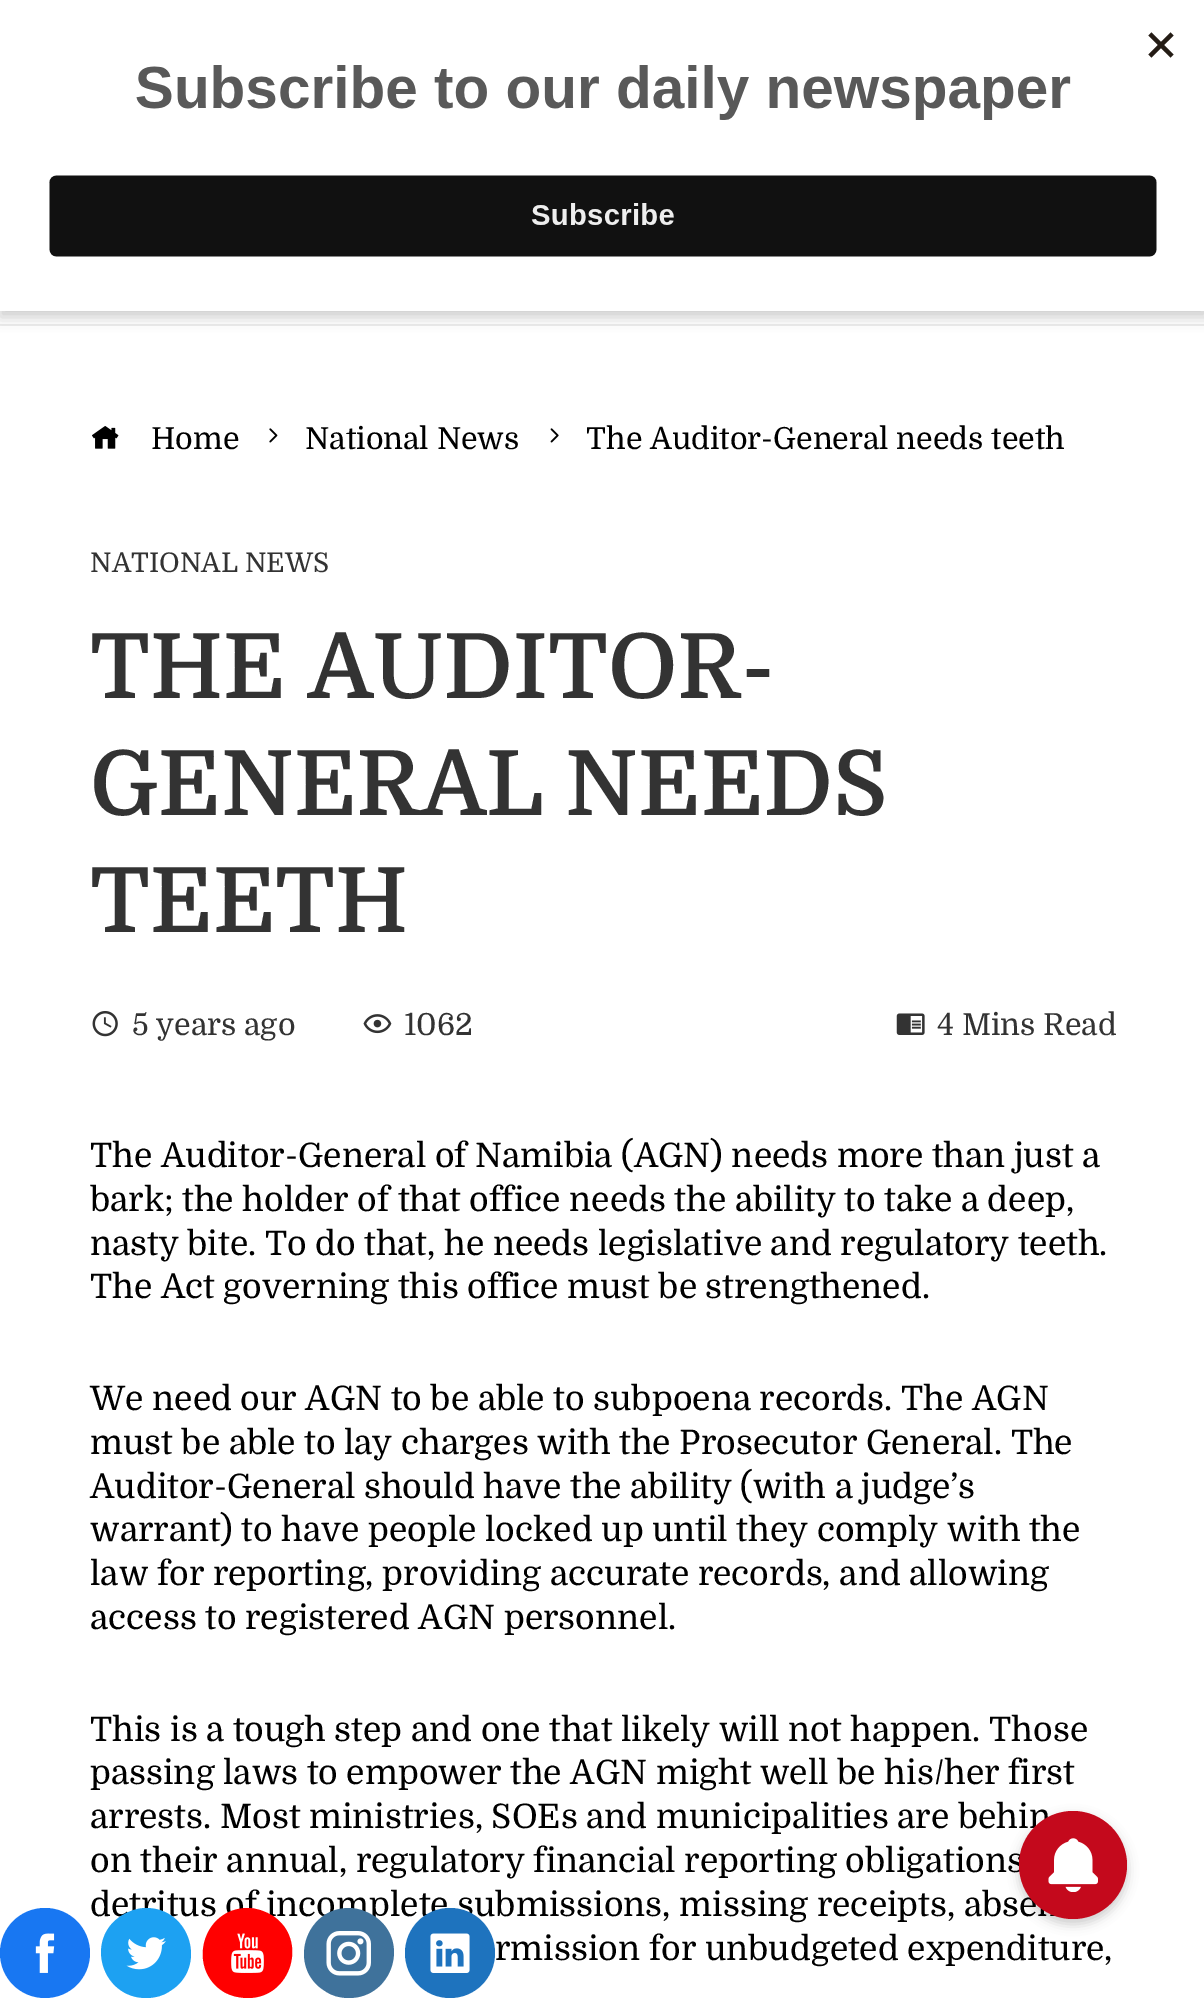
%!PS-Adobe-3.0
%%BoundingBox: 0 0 1204 1998
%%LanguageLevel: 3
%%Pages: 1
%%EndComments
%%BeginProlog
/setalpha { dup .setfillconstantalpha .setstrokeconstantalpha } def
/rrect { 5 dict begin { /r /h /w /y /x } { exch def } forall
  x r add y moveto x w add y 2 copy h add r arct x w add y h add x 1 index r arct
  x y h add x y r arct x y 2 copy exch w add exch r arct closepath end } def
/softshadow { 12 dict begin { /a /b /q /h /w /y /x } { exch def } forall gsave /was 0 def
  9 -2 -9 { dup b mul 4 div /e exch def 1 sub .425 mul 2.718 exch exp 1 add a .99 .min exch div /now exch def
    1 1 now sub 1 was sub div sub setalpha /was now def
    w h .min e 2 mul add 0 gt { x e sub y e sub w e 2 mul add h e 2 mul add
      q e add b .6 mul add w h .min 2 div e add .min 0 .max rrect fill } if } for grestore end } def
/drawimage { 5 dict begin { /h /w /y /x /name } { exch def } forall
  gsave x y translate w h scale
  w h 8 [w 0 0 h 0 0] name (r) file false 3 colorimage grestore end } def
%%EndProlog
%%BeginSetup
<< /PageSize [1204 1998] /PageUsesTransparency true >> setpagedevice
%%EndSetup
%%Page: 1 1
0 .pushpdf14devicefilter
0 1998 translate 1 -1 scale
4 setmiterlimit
1 setgray
0 0 1204 1998 rectfill
0.933 setgray
0 324 1204 2 rectfill
0 setgray
0 7 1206 310 0 7 0.2 softshadow
1 setgray
0 0 1204 311 rectfill
(images/1.raw) 49 32 1125 225 drawimage
(images/2.raw) 92 426 27 23 drawimage
(images/3.raw) 269 428 9 15 drawimage
(images/4.raw) 550 428 9 15 drawimage
(images/5.raw) 92 1011 26 26 drawimage
(images/6.raw) 363 1014 29 20 drawimage
(images/7.raw) 896 1013 29 22 drawimage
0 setgray
1019 1816 108 108 54 5.5 0.2 softshadow
0.094 0.467 0.949 setrgbcolor
newpath 45 1908 moveto 70 1908 90 1928 90 1953 curveto 90 1978 70 1998 45 1998 curveto 20 1998 0 1978 0 1953 curveto 0 1928 20 1908 45 1908 curveto closepath fill
(images/9.raw) 35 1933 20 40 drawimage
/Domine-Regular [30.4 0 0 -30.4 0 0] selectfont
0 setgray
151 449 moveto (Home) show
305 449 moveto (National News) show
586 449 moveto (The Auditor-General needs teeth) show
/Domine-Regular [27 0 0 -27 0 0] selectfont
0.2 setgray
90 572 moveto (NATIONAL NEWS) show
/Domine-SemiBold [90 0 0 -90 0 0] selectfont
90 698 moveto (THE AUDITOR-) show
90 815 moveto (GENERAL NEEDS) show
90 932 moveto (TEETH) show
/Domine-Regular [30.4 0 0 -30.4 0 0] selectfont
132 1035 moveto (5 years ago) show
404 1035 moveto (1062) show
937 1035 moveto (4 Mins Read) show
/Domine-Regular [33.75 0 0 -33.75 0 0] selectfont
0 setgray
90 1167 moveto (The Auditor-General of Namibia \(AGN\) needs more than just a) show
90 1211 moveto (bark; the holder of that office needs the ability to take a deep,) show
90 1255 moveto (nasty bite. To do that, he needs legislative and regulatory teeth.) show
90 1298 moveto (The Act governing this office must be strengthened.) show
90 1410 moveto (We need our AGN to be able to subpoena records. The AGN) show
90 1454 moveto (must be able to lay charges with the Prosecutor General. The) show
90 1498 moveto (Auditor-General should have the ability \(with a judge’s) show
90 1541 moveto (warrant\) to have people locked up until they comply with the) show
90 1585 moveto (law for reporting, providing accurate records, and allowing) show
90 1629 moveto (access to registered AGN personnel.) show
90 1741 moveto (This is a tough step and one that likely will not happen. Those) show
90 1784 moveto (passing laws to empower the AGN might well be his/her first) show
90 1828 moveto (arrests. Most ministries, SOEs and municipalities are behin) show
90 1872 moveto (on their annual, regulatory financial reporting obligations) show
90 1916 moveto (detritus of incomplete submissions, missing receipts, absen) show
495 1960 moveto (rmission for unbudgeted expenditure,) show
0.769 0.035 0.11 setrgbcolor
newpath 1073 1865 54 0 360 arc closepath fill
(images/8.raw) 1048 1838 50 54 drawimage
0.114 0.631 0.949 setrgbcolor
newpath 146 1908 moveto 191 1908 208 1968 170 1991 curveto 163 1996 155 1998 146 1998 curveto 102 1998 84 1940 121 1916 curveto 129 1911 137 1908 146 1908 curveto closepath fill
(images/10.raw) 126 1937 40 33 drawimage
1 0 0 setrgbcolor
newpath 248 1908 moveto 202 1908 186 1969 224 1992 curveto 231 1996 239 1998 248 1998 curveto 291 1998 309 1940 273 1916 curveto 265 1911 256 1908 248 1908 curveto closepath fill
(images/11.raw) 231 1933 33 40 drawimage
0.247 0.447 0.608 setrgbcolor
newpath 349 1908 moveto 304 1908 287 1968 325 1991 curveto 332 1996 340 1998 349 1998 curveto 393 1998 411 1940 374 1916 curveto 366 1911 358 1908 349 1908 curveto closepath fill
(images/12.raw) 326 1931 45 45 drawimage
0.118 0.451 0.745 setrgbcolor
newpath 450 1908 moveto 475 1908 495 1928 495 1953 curveto 495 1978 475 1998 450 1998 curveto 425 1998 405 1978 405 1953 curveto 405 1928 425 1908 450 1908 curveto closepath fill
(images/13.raw) 430 1933 40 40 drawimage
.poppdf14devicefilter showpage
%%EOF
